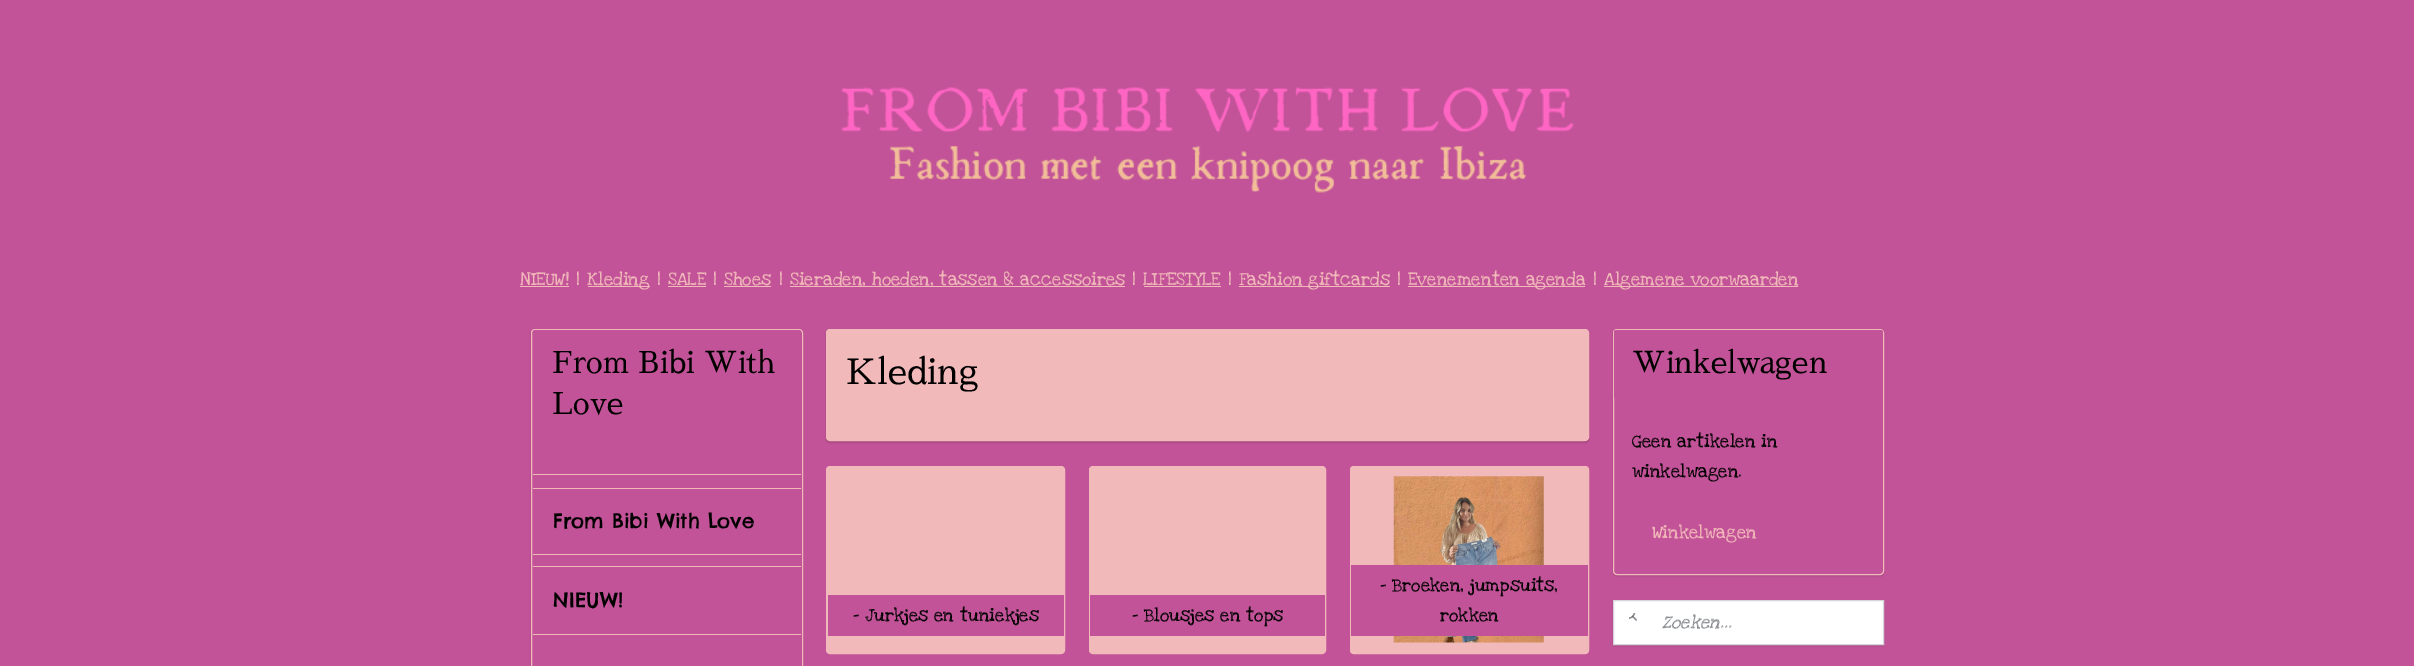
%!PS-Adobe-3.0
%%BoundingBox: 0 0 2414 666
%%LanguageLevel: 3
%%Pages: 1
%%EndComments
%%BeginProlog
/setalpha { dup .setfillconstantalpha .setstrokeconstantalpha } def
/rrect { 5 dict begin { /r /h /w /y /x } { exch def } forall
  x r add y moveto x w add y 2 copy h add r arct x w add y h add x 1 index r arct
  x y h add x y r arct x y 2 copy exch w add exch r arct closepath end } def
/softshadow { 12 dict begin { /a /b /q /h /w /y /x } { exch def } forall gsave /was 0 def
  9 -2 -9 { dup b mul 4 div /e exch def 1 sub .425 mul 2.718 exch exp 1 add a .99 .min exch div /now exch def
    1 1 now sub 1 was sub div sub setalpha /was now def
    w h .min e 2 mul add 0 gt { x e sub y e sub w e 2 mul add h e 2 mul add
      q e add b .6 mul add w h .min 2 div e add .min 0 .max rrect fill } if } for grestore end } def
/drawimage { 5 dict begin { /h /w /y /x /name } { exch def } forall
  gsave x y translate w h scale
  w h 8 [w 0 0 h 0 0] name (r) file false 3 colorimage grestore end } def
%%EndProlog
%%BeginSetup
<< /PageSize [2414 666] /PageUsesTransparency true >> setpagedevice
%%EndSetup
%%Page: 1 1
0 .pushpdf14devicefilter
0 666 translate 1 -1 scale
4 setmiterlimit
0.761 0.325 0.596 setrgbcolor
0 0 2414 666 rectfill
(images/1.raw) 841 87 733 106 drawimage
0.945 0.725 0.725 setrgbcolor
520 286 49 1 rectfill
588 286 62 1 rectfill
668 286 38 1 rectfill
724 286 47 1 rectfill
790 286 335 1 rectfill
1144 286 77 1 rectfill
1239 286 151 1 rectfill
1408 286 177 1 rectfill
1604 286 194 1 rectfill
0 setgray
531 330 272 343 4 1 0.15 softshadow
0.761 0.325 0.596 setrgbcolor
531.5 329.5 271 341 3.5 rrect gsave fill grestore
0.945 0.725 0.725 setrgbcolor
stroke
0.761 0.325 0.596 setrgbcolor
newpath 535.5 330 moveto 798.5 330 lineto 800 330 801 331 801 332.5 curveto 801 439 lineto 533 439 lineto 533 332.5 lineto 533 331 534 330 535.5 330 curveto closepath fill
0.945 0.725 0.725 setrgbcolor
533 474 268 1 rectfill
533 488 268 1 rectfill
533 554 268 1 rectfill
533 566 268 1 rectfill
533 634 268 1 rectfill
0 setgray
826 330 763 113 4 1 0.15 softshadow
0.945 0.725 0.725 setrgbcolor
826.5 329.5 762 111 3.5 rrect gsave fill grestore
stroke
826.5 466.5 238 187 3.5 rrect gsave fill grestore
stroke
0.761 0.325 0.596 setrgbcolor
828 595 236 41 rectfill
0.945 0.725 0.725 setrgbcolor
1089.5 466.5 236 187 3.5 rrect gsave fill grestore
stroke
0.761 0.325 0.596 setrgbcolor
1090 595 235 41 rectfill
0.945 0.725 0.725 setrgbcolor
1350 466 239 188 4 rrect fill
(images/2.raw) 1393 476 151 167 drawimage
1350.5 466.5 238 187 3.5 rrect stroke
0.761 0.325 0.596 setrgbcolor
1351 565 237 71 rectfill
0 setgray
1613 330 271 246 4 1 0.15 softshadow
0.761 0.325 0.596 setrgbcolor
1613.5 329.5 270 245 3.5 rrect gsave fill grestore
0.945 0.725 0.725 setrgbcolor
stroke
0.761 0.325 0.596 setrgbcolor
newpath 1616.5 330 moveto 1880.5 330 lineto 1882 330 1883 331 1883 332.5 curveto 1883 398 lineto 1614 398 lineto 1614 332.5 lineto 1614 331 1615 330 1616.5 330 curveto closepath fill
0 setgray
1613 601 271 45 0 1 0.15 softshadow
1 setgray
newpath 1613.5 600.5 moveto 1883.5 600.5 lineto 1883.5 644.5 lineto 1613.5 644.5 lineto closepath gsave fill grestore
0.827 0.835 0.851 setrgbcolor
stroke
(images/3.raw) 1629 613 8 8 drawimage
/LoveYaLikeASister-Regular [18.75 0 0 -18.75 0 0] selectfont
0.945 0.725 0.725 setrgbcolor
520 285 moveto (NIEUW!) show
576 285 moveto (|) show
587 285 moveto (Kleding) show
657 285 moveto (|) show
668 285 moveto (SALE) show
713 285 moveto (|) show
724 285 moveto (Shoes) show
779 285 moveto (|) show
790 285 moveto (Sieraden, hoeden, tassen & accessoires) show
1132 285 moveto (|) show
1143 285 moveto (LIFESTYLE) show
1228 285 moveto (|) show
1239 285 moveto (Fashion giftcards) show
1397 285 moveto (|) show
1408 285 moveto (Evenementen agenda) show
1593 285 moveto (|) show
1604 285 moveto (Algemene voorwaarden) show
/SawarabiMincho-Regular [30 0 0 -30 0 0] selectfont
0 setgray
552 373 moveto (From Bibi With) show
552 414 moveto (Love) show
/ChelseaMarket-Regular [20 0 0 -20 0 0] selectfont
553 528 moveto (From Bibi With Love) show
553 607 moveto (NIEUW!) show
/SawarabiMincho-Regular [35 0 0 -35 0 0] selectfont
846 384 moveto (Kleding) show
/LoveYaLikeASister-Regular [18.75 0 0 -18.75 0 0] selectfont
853 621 moveto (- Jurkjes en tuniekjes) show
1132 621 moveto (- Blousjes en tops) show
1380 591 moveto (- Broeken, jumpsuits,) show
1440 621 moveto (rokken) show
/SawarabiMincho-Regular [30 0 0 -30 0 0] selectfont
1632 373 moveto (Winkelwagen) show
/LoveYaLikeASister-Regular [18.75 0 0 -18.75 0 0] selectfont
1632 447 moveto (Geen artikelen in) show
1632 477 moveto (winkelwagen.) show
0.945 0.725 0.725 setrgbcolor
1652 538 moveto (Winkelwagen) show
/LoveYaLikeASister-Italic [18.75 0 0 -18.75 0 0] selectfont
0.537 0.549 0.569 setrgbcolor
1662 628 moveto (Zoeken...) show
.poppdf14devicefilter showpage
%%EOF
